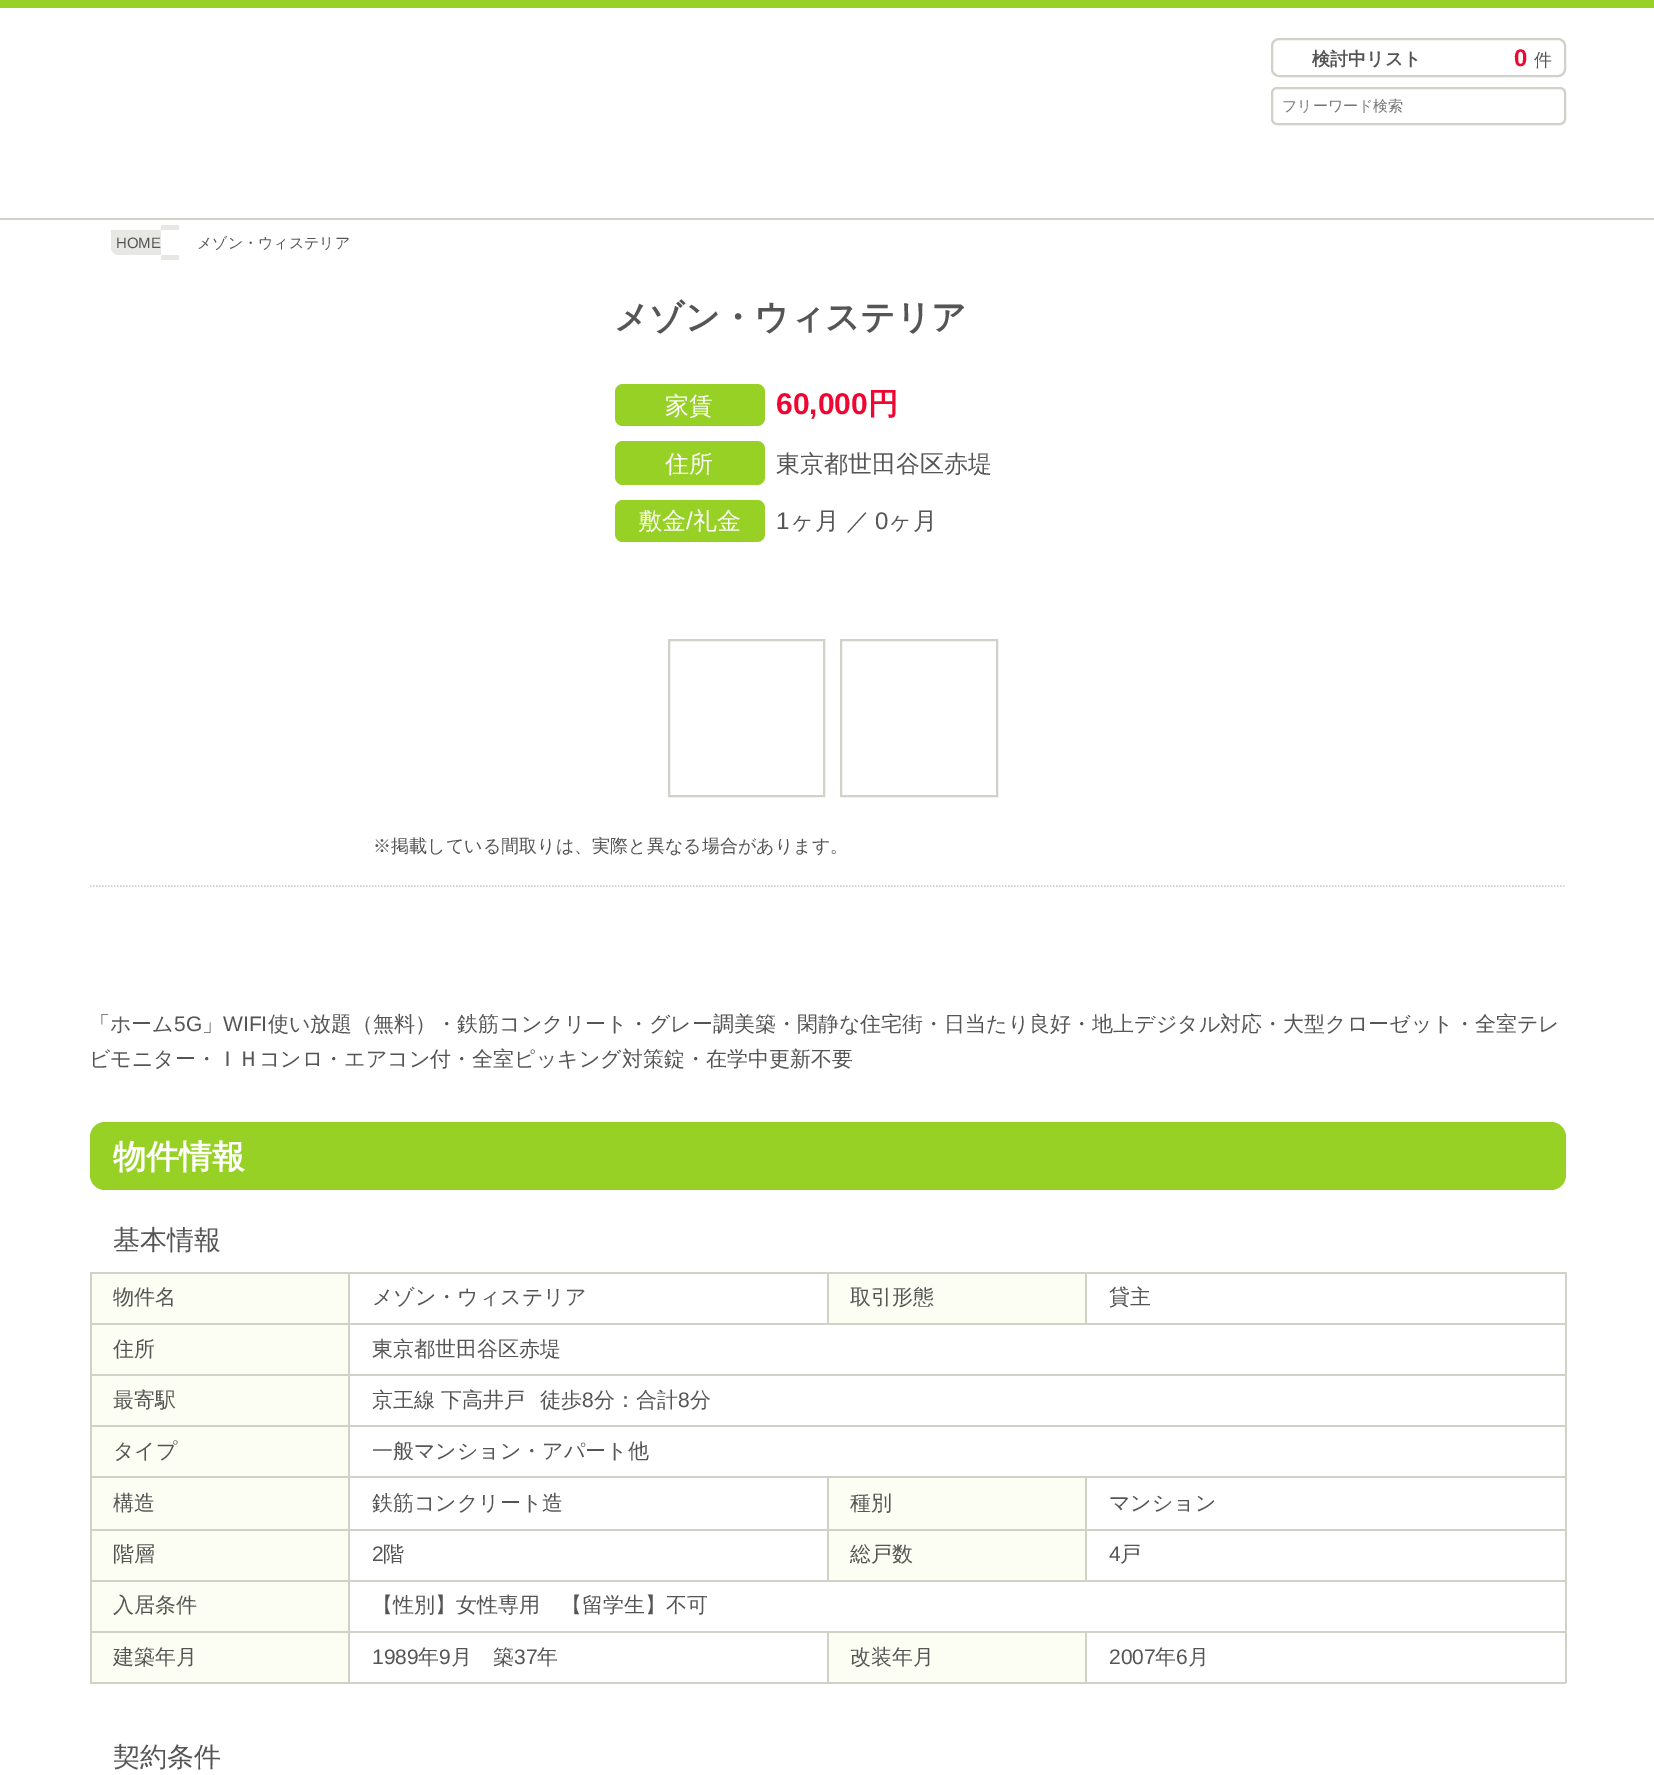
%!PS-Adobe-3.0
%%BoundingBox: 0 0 1654 1775
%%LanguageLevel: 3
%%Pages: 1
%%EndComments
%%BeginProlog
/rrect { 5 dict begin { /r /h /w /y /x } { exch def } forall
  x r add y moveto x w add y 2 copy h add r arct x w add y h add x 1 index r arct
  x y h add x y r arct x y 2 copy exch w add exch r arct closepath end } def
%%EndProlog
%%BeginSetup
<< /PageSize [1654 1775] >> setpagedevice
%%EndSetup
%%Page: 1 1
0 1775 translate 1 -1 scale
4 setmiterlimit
1 setgray
0 0 1654 1775 rectfill
0.592 0.82 0.145 setrgbcolor
0 0 1654 8 rectfill
0.816 0.82 0.78 setrgbcolor
2 setlinewidth
1272 39 293 37 7 rrect stroke
1272 88 293 36 5 rrect stroke
0 218 1654 2 rectfill
0.906 0.91 0.89 setrgbcolor
newpath 111 230 moveto 161 230 lineto 161 255 lineto 119 255 lineto 114.5 255 111 251.5 111 247 curveto closepath fill
161 225 18 35 rectfill
1 setgray
161 230 18 25 rectfill
0.592 0.82 0.145 setrgbcolor
615 384 150 42 8 rrect fill
615 441 150 44 8 rrect fill
615 500 150 42 8 rrect fill
0.816 0.82 0.78 setrgbcolor
669 640 155 156 rectstroke
841 640 156 156 rectstroke
1.5 setlinewidth
[1.5 1.5] 0 setdash
newpath 90 886 moveto 1566 886 lineto stroke
0.592 0.82 0.145 setrgbcolor
90 1122 1476 68 15 rrect fill
0.816 0.82 0.78 setrgbcolor
90 1272 1476 2 rectfill
90 1272 2 411 rectfill
0.988 0.992 0.953 setrgbcolor
92 1274 256 49 rectfill
0.816 0.82 0.78 setrgbcolor
1565 1272 2 411 rectfill
1085 1323 481 2 rectfill
1085 1272 2 53 rectfill
827 1323 259 2 rectfill
827 1272 2 53 rectfill
1085 1580 481 2 rectfill
1085 1529 2 52 rectfill
1085 1529 481 2 rectfill
1085 1476 2 54 rectfill
827 1580 259 2 rectfill
827 1529 2 52 rectfill
827 1529 259 2 rectfill
827 1476 2 54 rectfill
1085 1682 481 2 rectfill
1085 1631 2 52 rectfill
827 1682 259 2 rectfill
827 1631 2 52 rectfill
348 1682 480 2 rectfill
348 1631 2 52 rectfill
348 1631 1218 2 rectfill
348 1580 2 52 rectfill
348 1580 480 2 rectfill
348 1529 2 52 rectfill
348 1529 480 2 rectfill
348 1476 2 54 rectfill
348 1476 1218 2 rectfill
348 1425 2 53 rectfill
348 1425 1218 2 rectfill
348 1374 2 53 rectfill
348 1374 1218 2 rectfill
348 1323 2 53 rectfill
348 1323 480 2 rectfill
348 1272 2 53 rectfill
90 1323 260 2 rectfill
0.988 0.992 0.953 setrgbcolor
829 1274 256 49 rectfill
92 1325 256 49 rectfill
0.816 0.82 0.78 setrgbcolor
90 1374 260 2 rectfill
0.988 0.992 0.953 setrgbcolor
92 1376 256 49 rectfill
0.816 0.82 0.78 setrgbcolor
90 1425 260 2 rectfill
0.988 0.992 0.953 setrgbcolor
92 1427 256 49 rectfill
0.816 0.82 0.78 setrgbcolor
90 1476 260 2 rectfill
0.988 0.992 0.953 setrgbcolor
92 1478 256 51 rectfill
0.816 0.82 0.78 setrgbcolor
90 1529 260 2 rectfill
0.988 0.992 0.953 setrgbcolor
829 1478 256 51 rectfill
92 1531 256 49 rectfill
0.816 0.82 0.78 setrgbcolor
90 1580 260 2 rectfill
0.988 0.992 0.953 setrgbcolor
829 1531 256 49 rectfill
92 1582 256 49 rectfill
0.816 0.82 0.78 setrgbcolor
90 1631 260 2 rectfill
0.988 0.992 0.953 setrgbcolor
92 1633 256 49 rectfill
0.816 0.82 0.78 setrgbcolor
90 1682 260 2 rectfill
0.988 0.992 0.953 setrgbcolor
829 1633 256 49 rectfill
/WenQuanYiZenHei-Bold [18.05 0 0 -18.05 0 0] selectfont
0.333 setgray
1312 65 moveto (検討中リスト) show
/LiberationSans-Bold [24 0 0 -24 0 0] selectfont
0.937 0.027 0.196 setrgbcolor
1514 66 moveto (0) show
/WenQuanYiZenHei-Medium [18.05 0 0 -18.05 0 0] selectfont
0.333 setgray
1534 66 moveto (件) show
/WenQuanYiZenHei-Medium [15 0 0 -15 0 0] selectfont
0.459 setgray
1282 111 moveto (フリーワード検索) show
/LiberationSans-Regular [15 0 0 -15 0 0] selectfont
0.333 setgray
116 248 moveto (HOME) show
/WenQuanYiZenHei-Medium [15 0 0 -15 0 0] selectfont
197 248 moveto (メゾン・ウィステリア) show
/WenQuanYiZenHei-Bold [34.5 0 0 -34.5 0 0] selectfont
614 329 moveto (メゾン・ウィステリア) show
/WenQuanYiZenHei-Medium [24 0 0 -24 0 0] selectfont
1 setgray
665 414 moveto (家賃) show
/LiberationSans-Bold [30 0 0 -30 0 0] selectfont
0.937 0.027 0.196 setrgbcolor
776 414 moveto (60,000) show
/WenQuanYiZenHei-Bold [30 0 0 -30 0 0] selectfont
868 414 moveto (円) show
/WenQuanYiZenHei-Medium [24 0 0 -24 0 0] selectfont
1 setgray
665 472 moveto (住所) show
0.333 setgray
776 472 moveto (東京都世田谷区赤堤) show
1 setgray
638 529 moveto (敷金) show
/LiberationSans-Regular [24 0 0 -24 0 0] selectfont
686 529 moveto (/) show
/WenQuanYiZenHei-Medium [24 0 0 -24 0 0] selectfont
693 529 moveto (礼金) show
/LiberationSans-Regular [24 0 0 -24 0 0] selectfont
0.333 setgray
776 529 moveto (1) show
/WenQuanYiZenHei-Medium [24 0 0 -24 0 0] selectfont
790 529 moveto (ヶ月 ／) show
/LiberationSans-Regular [24 0 0 -24 0 0] selectfont
875 529 moveto (0) show
/WenQuanYiZenHei-Medium [24 0 0 -24 0 0] selectfont
888 529 moveto (ヶ月) show
/WenQuanYiZenHei-Medium [18.05 0 0 -18.05 0 0] selectfont
373 852 moveto (※掲載している間取りは、実際と異なる場合があります。) show
/WenQuanYiZenHei-Medium [21 0 0 -21 0 0] selectfont
89 1031 moveto (「ホーム) show
/LiberationSans-Regular [21 0 0 -21 0 0] selectfont
174 1031 moveto (5G) show
/WenQuanYiZenHei-Medium [21 0 0 -21 0 0] selectfont
202 1031 moveto (」) show
/LiberationSans-Regular [21 0 0 -21 0 0] selectfont
223 1031 moveto (WIFI) show
/WenQuanYiZenHei-Medium [21 0 0 -21 0 0] selectfont
268 1031 moveto (使い放題（無料）・鉄筋コンクリート・グレー調美築・閑静な住宅街・日当たり良好・地上デジタル対応・大型クローゼット・全室テレ) show
89 1066 moveto (ビモニター・ＩＨコンロ・エアコン付・全室ピッキング対策錠・在学中更新不要) show
/WenQuanYiZenHei-Bold [33 0 0 -33 0 0] selectfont
1 setgray
113 1168 moveto (物件情報) show
/WenQuanYiZenHei-Medium [27 0 0 -27 0 0] selectfont
0.333 setgray
113 1249 moveto (基本情報) show
/WenQuanYiZenHei-Medium [21 0 0 -21 0 0] selectfont
113 1304 moveto (物件名) show
372 1304 moveto (メゾン・ウィステリア) show
850 1304 moveto (取引形態) show
1109 1304 moveto (貸主) show
113 1356 moveto (住所) show
372 1356 moveto (東京都世田谷区赤堤) show
113 1407 moveto (最寄駅) show
372 1407 moveto (京王線 下高井戸) show
540 1407 moveto (徒歩) show
/LiberationSans-Regular [21 0 0 -21 0 0] selectfont
582 1407 moveto (8) show
/WenQuanYiZenHei-Medium [21 0 0 -21 0 0] selectfont
594 1407 moveto (分：合計) show
/LiberationSans-Regular [21 0 0 -21 0 0] selectfont
678 1407 moveto (8) show
/WenQuanYiZenHei-Medium [21 0 0 -21 0 0] selectfont
690 1407 moveto (分) show
113 1458 moveto (タイプ) show
372 1458 moveto (一般マンション・アパート他) show
113 1510 moveto (構造) show
372 1510 moveto (鉄筋コンクリート造) show
850 1510 moveto (種別) show
1109 1510 moveto (マンション) show
113 1561 moveto (階層) show
/LiberationSans-Regular [21 0 0 -21 0 0] selectfont
372 1561 moveto (2) show
/WenQuanYiZenHei-Medium [21 0 0 -21 0 0] selectfont
383 1561 moveto (階) show
850 1561 moveto (総戸数) show
/LiberationSans-Regular [21 0 0 -21 0 0] selectfont
1109 1561 moveto (4) show
/WenQuanYiZenHei-Medium [21 0 0 -21 0 0] selectfont
1120 1561 moveto (戸) show
113 1612 moveto (入居条件) show
372 1612 moveto (【性別】女性専用　【留学生】不可) show
113 1664 moveto (建築年月) show
/LiberationSans-Regular [21 0 0 -21 0 0] selectfont
372 1664 moveto (1989) show
/WenQuanYiZenHei-Medium [21 0 0 -21 0 0] selectfont
418 1664 moveto (年) show
/LiberationSans-Regular [21 0 0 -21 0 0] selectfont
439 1664 moveto (9) show
/WenQuanYiZenHei-Medium [21 0 0 -21 0 0] selectfont
451 1664 moveto (月　築) show
/LiberationSans-Regular [21 0 0 -21 0 0] selectfont
514 1664 moveto (37) show
/WenQuanYiZenHei-Medium [21 0 0 -21 0 0] selectfont
537 1664 moveto (年) show
850 1664 moveto (改装年月) show
/LiberationSans-Regular [21 0 0 -21 0 0] selectfont
1109 1664 moveto (2007) show
/WenQuanYiZenHei-Medium [21 0 0 -21 0 0] selectfont
1155 1664 moveto (年) show
/LiberationSans-Regular [21 0 0 -21 0 0] selectfont
1176 1664 moveto (6) show
/WenQuanYiZenHei-Medium [21 0 0 -21 0 0] selectfont
1188 1664 moveto (月) show
/WenQuanYiZenHei-Medium [27 0 0 -27 0 0] selectfont
113 1766 moveto (契約条件) show
showpage
%%EOF
